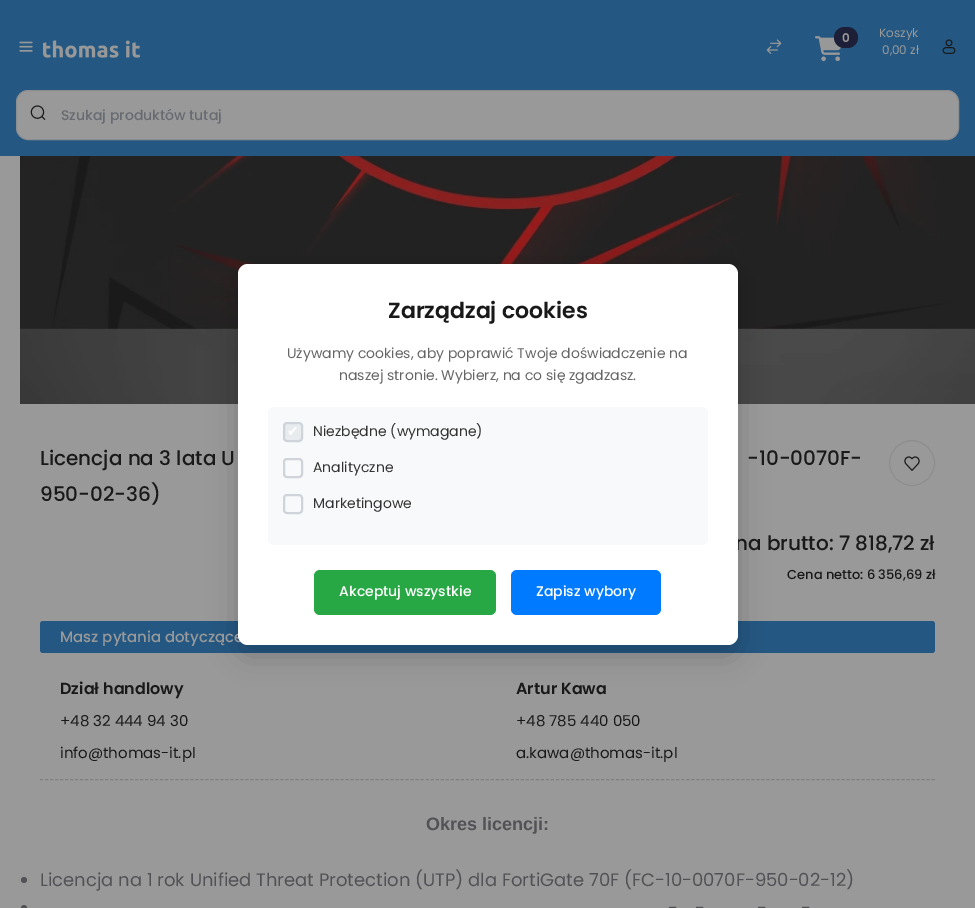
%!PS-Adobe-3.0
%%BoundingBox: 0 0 975 908
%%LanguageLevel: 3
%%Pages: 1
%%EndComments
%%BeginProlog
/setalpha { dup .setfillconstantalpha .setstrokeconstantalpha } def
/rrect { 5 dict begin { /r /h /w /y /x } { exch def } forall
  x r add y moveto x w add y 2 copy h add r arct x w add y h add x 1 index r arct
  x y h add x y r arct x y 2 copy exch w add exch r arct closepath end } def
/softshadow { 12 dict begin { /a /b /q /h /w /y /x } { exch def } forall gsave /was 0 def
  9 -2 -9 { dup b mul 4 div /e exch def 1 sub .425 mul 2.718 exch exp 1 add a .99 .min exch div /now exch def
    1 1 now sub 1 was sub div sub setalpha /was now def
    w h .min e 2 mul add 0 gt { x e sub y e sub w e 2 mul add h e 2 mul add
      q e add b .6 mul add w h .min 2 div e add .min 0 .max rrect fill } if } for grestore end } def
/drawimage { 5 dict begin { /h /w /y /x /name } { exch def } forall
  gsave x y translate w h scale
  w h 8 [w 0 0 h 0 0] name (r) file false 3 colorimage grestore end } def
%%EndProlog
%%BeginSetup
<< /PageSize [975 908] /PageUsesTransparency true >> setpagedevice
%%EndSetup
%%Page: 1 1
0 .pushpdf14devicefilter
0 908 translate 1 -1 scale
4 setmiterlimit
0.6 setgray
0 0 975 908 rectfill
0.141 0.345 0.51 setrgbcolor
0 0 975 156 rectfill
(images/1.raw) 19 41 14 11 drawimage
(images/2.raw) 43 40 97 18 drawimage
(images/3.raw) 766 39 16 15 drawimage
(images/4.raw) 815 36 26 26 drawimage
0.11 0.122 0.216 setrgbcolor
834 27 24 21 10.5 rrect fill
(images/5.raw) 942 39 14 15 drawimage
0.6 setgray
16.5 90.5 942 49 11.5 rrect gsave fill grestore
0.549 0.553 0.561 setrgbcolor
stroke
(images/6.raw) 30 105 16 15 drawimage
(images/7.raw) 20 156 955 248 drawimage
newpath 912 463 22.5 0 360 arc closepath stroke
(images/8.raw) 904 456 16 15 drawimage
0.498 setgray
[3 2.01] 0 setdash
newpath 40 779.5 moveto 935 779.5 lineto stroke
0.141 0.345 0.51 setrgbcolor
40 621 895 32 3 rrect fill
0.322 0.322 0.337 setrgbcolor
newpath 24 880 3 0 360 arc closepath fill
newpath 24 908 3 0 360 arc closepath fill
0 setgray
238 274 500 381 10 15 0.2 softshadow
/Poppins-SemiBold [12 0 0 -12 0 0] selectfont
0.6 setgray
842 42 moveto (0) show
/Poppins-Regular [12 0 0 -12 0 0] selectfont
879 37 moveto (Koszyk) show
882 54 moveto (0,00 zł) show
/Poppins-Medium [14 0 0 -14 0 0] selectfont
0.404 0.42 0.443 setrgbcolor
61 120 moveto (Szukaj produktów tutaj) show
/Poppins-Medium [20 0 0 -20 0 0] selectfont
0.098 setgray
40 465 moveto (Licencja na 3 lata U) show
747 465 moveto (-10-0070F-) show
40 501 moveto (950-02-36\)) show
735 550 moveto (na brutto: 7 818,72 zł) show
/Poppins-Medium [13 0 0 -13 0 0] selectfont
787 579 moveto (Cena netto: 6 356,69 zł) show
/Poppins-Medium [15 0 0 -15 0 0] selectfont
0.6 setgray
60 642 moveto (Masz pytania dotyczące) show
/Poppins-SemiBold [16 0 0 -16 0 0] selectfont
0.098 setgray
60 694 moveto (Dział handlowy) show
/Poppins-Regular [15 0 0 -15 0 0] selectfont
60 726 moveto (+48 32 444 94 30) show
60 758 moveto (info@thomas-it.pl) show
/Poppins-SemiBold [16 0 0 -16 0 0] selectfont
516 694 moveto (Artur Kawa) show
/Poppins-Regular [15 0 0 -15 0 0] selectfont
516 726 moveto (+48 785 440 050) show
516 758 moveto (a.kawa@thomas-it.pl) show
/LiberationSans-Bold [18 0 0 -18 0 0] selectfont
0.322 0.322 0.337 setrgbcolor
426 830 moveto (Okres licencji:) show
/Poppins-Regular [18 0 0 -18 0 0] selectfont
40 886 moveto (Licencja na 1 rok Unified Threat Protection \(UTP\) dla FortiGate 70F \(FC-10-0070F-950-02-12\)) show
668 914 moveto (-) show
695 914 moveto (-) show
757 914 moveto (-) show
801 914 moveto (-) show
1 setgray
238 264 500 381 10 rrect fill
/Poppins-SemiBold [22 0 0 -22 0 0] selectfont
0.098 setgray
388 318 moveto (Zarządzaj cookies) show
/Poppins-Regular [14 0 0 -14 0 0] selectfont
0.4 setgray
287 358 moveto (Używamy cookies, aby poprawić Twoje doświadczenie na) show
339 380 moveto (naszej stronie. Wybierz, na co się zgadzasz.) show
0.973 0.976 0.98 setrgbcolor
268 407 440 138 6 rrect fill
0.914 0.925 0.937 setrgbcolor
284 423 18 18 3 rrect gsave fill grestore
0.808 0.831 0.855 setrgbcolor
2 setlinewidth
[] 0 setdash
stroke
/DejaVuSans-Regular [14 0 0 -14 0 0] selectfont
1 setgray
287 436 moveto (✔) show
/Poppins-Regular [14 0 0 -14 0 0] selectfont
0.2 setgray
313 436 moveto (Niezbędne \(wymagane\)) show
0.808 0.831 0.855 setrgbcolor
284 459 18 18 3 rrect stroke
0.2 setgray
313 472 moveto (Analityczne) show
0.808 0.831 0.855 setrgbcolor
284 495 18 18 3 rrect stroke
0.2 setgray
313 508 moveto (Marketingowe) show
0.157 0.655 0.271 setrgbcolor
314 570 182 45 6 rrect fill
/Poppins-Medium [14 0 0 -14 0 0] selectfont
1 setgray
339 596 moveto (Akceptuj wszystkie) show
0 0.482 1 setrgbcolor
511 570 150 45 6 rrect fill
1 setgray
536 596 moveto (Zapisz wybory) show
.poppdf14devicefilter showpage
%%EOF
